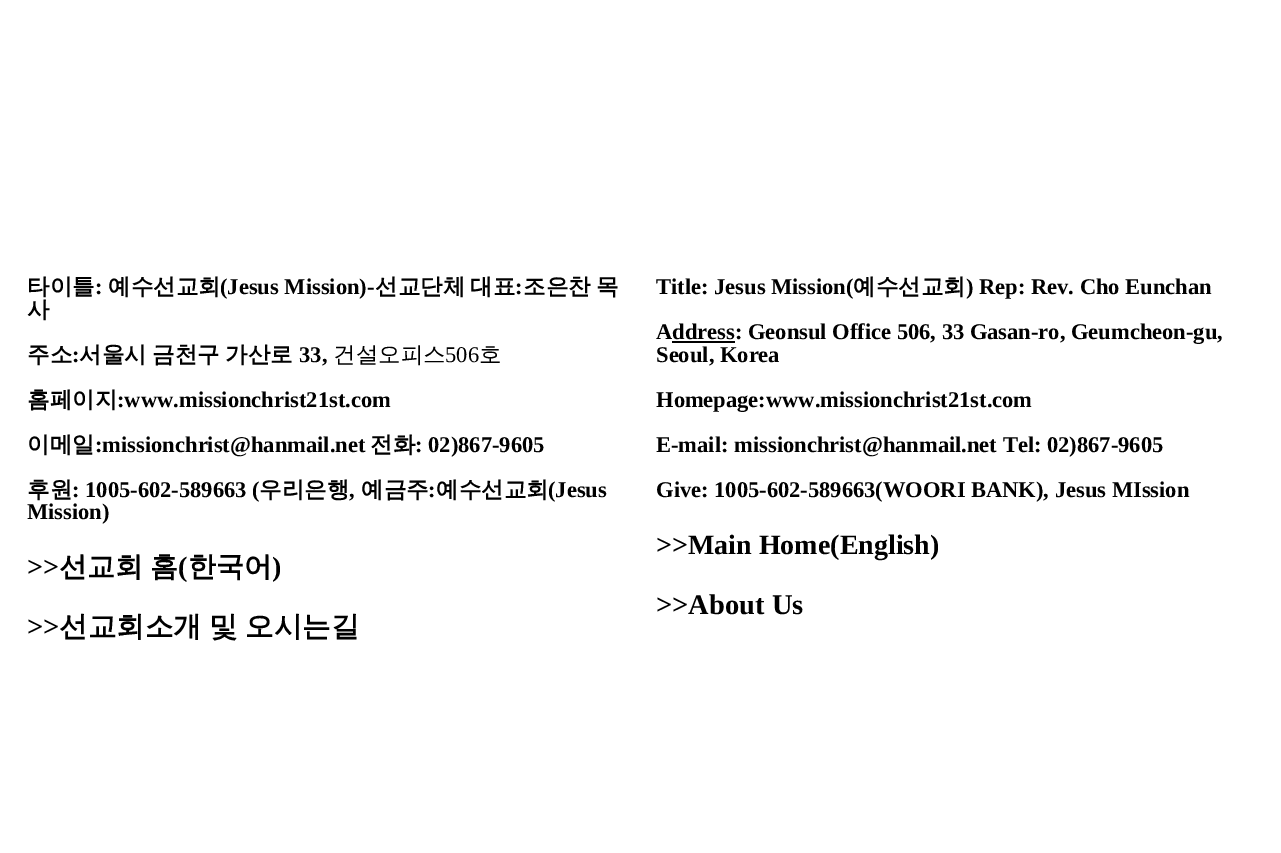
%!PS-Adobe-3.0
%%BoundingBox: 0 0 1281 853
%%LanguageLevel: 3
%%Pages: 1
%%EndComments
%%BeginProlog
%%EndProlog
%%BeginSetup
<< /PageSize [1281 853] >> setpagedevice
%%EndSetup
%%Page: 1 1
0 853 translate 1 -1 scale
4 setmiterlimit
1 setgray
0 0 1281 853 rectfill
0 setgray
672 341 63 2 rectfill
/WenQuanYiZenHei-Bold [22.5 0 0 -22.5 0 0] selectfont
27 294 moveto (타이틀) show
/LiberationSerif-Bold [22.5 0 0 -22.5 0 0] selectfont
95 294 moveto (:) show
/WenQuanYiZenHei-Bold [22.5 0 0 -22.5 0 0] selectfont
108 294 moveto (예수선교회) show
/LiberationSerif-Bold [22.5 0 0 -22.5 0 0] selectfont
220 294 moveto (\(Jesus Mission\)-) show
/WenQuanYiZenHei-Bold [22.5 0 0 -22.5 0 0] selectfont
375 294 moveto (선교단체) show
470 294 moveto (대표) show
/LiberationSerif-Bold [22.5 0 0 -22.5 0 0] selectfont
515 294 moveto (:) show
/WenQuanYiZenHei-Bold [22.5 0 0 -22.5 0 0] selectfont
523 294 moveto -1 0 32 (조은찬 목) widthshow
27 317 moveto (사) show
27 362 moveto (주소) show
/LiberationSerif-Bold [22.5 0 0 -22.5 0 0] selectfont
72 362 moveto (:) show
/WenQuanYiZenHei-Bold [22.5 0 0 -22.5 0 0] selectfont
79 362 moveto -1 0 32 (서울시 금천구 가산로) widthshow
/LiberationSerif-Bold [22.5 0 0 -22.5 0 0] selectfont
299 362 moveto (33,) show
/WenQuanYiZenHei-Medium [22.5 0 0 -22.5 0 0] selectfont
333 362 moveto (건설오피스) show
/LiberationSerif-Regular [22.5 0 0 -22.5 0 0] selectfont
445 362 moveto (506) show
/WenQuanYiZenHei-Medium [22.5 0 0 -22.5 0 0] selectfont
479 362 moveto (호) show
/WenQuanYiZenHei-Bold [22.5 0 0 -22.5 0 0] selectfont
27 407 moveto (홈페이지) show
/LiberationSerif-Bold [22.5 0 0 -22.5 0 0] selectfont
117 407 moveto (:www.missionchrist21st.com) show
/WenQuanYiZenHei-Bold [22.5 0 0 -22.5 0 0] selectfont
27 452 moveto (이메일) show
/LiberationSerif-Bold [22.5 0 0 -22.5 0 0] selectfont
95 452 moveto (:missionchrist@hanmail.net) show
/WenQuanYiZenHei-Bold [22.5 0 0 -22.5 0 0] selectfont
370 452 moveto (전화) show
/LiberationSerif-Bold [22.5 0 0 -22.5 0 0] selectfont
415 452 moveto (: 02\)867-9605) show
/WenQuanYiZenHei-Bold [22.5 0 0 -22.5 0 0] selectfont
27 497 moveto (후원) show
/LiberationSerif-Bold [22.5 0 0 -22.5 0 0] selectfont
72 497 moveto (: 1005-602-589663 \() show
/WenQuanYiZenHei-Bold [22.5 0 0 -22.5 0 0] selectfont
259 497 moveto (우리은행) show
/LiberationSerif-Bold [22.5 0 0 -22.5 0 0] selectfont
349 497 moveto (,) show
/WenQuanYiZenHei-Bold [22.5 0 0 -22.5 0 0] selectfont
361 497 moveto (예금주) show
/LiberationSerif-Bold [22.5 0 0 -22.5 0 0] selectfont
428 497 moveto (:) show
/WenQuanYiZenHei-Bold [22.5 0 0 -22.5 0 0] selectfont
436 497 moveto (예수선교회) show
/LiberationSerif-Bold [22.5 0 0 -22.5 0 0] selectfont
548 497 moveto (\(Jesus) show
27 519 moveto (Mission\)) show
/LiberationSerif-Bold [28 0 0 -28 0 0] selectfont
27 576 moveto (>>) show
/WenQuanYiZenHei-Bold [28 0 0 -28 0 0] selectfont
59 576 moveto -1 0 32 (선교회 홈) widthshow
/LiberationSerif-Bold [28 0 0 -28 0 0] selectfont
178 576 moveto (\() show
/WenQuanYiZenHei-Bold [28 0 0 -28 0 0] selectfont
188 576 moveto (한국어) show
/LiberationSerif-Bold [28 0 0 -28 0 0] selectfont
272 576 moveto (\)) show
/LiberationSerif-Bold [28.5 0 0 -28.5 0 0] selectfont
27 636 moveto (>>) show
/WenQuanYiZenHei-Bold [28.5 0 0 -28.5 0 0] selectfont
59 636 moveto -1 0 32 (선교회소개 및 오시는길) widthshow
/LiberationSerif-Bold [22.5 0 0 -22.5 0 0] selectfont
656 294 moveto (Title: Jesus Mission\() show
/WenQuanYiZenHei-Bold [22.5 0 0 -22.5 0 0] selectfont
853 294 moveto (예수선교회) show
/LiberationSerif-Bold [22.5 0 0 -22.5 0 0] selectfont
966 294 moveto (\) Rep: Rev. Cho Eunchan) show
656 339 moveto (Address: Geonsul Office 506, 33 Gasan-ro, Geumcheon-gu,) show
656 362 moveto (Seoul, Korea) show
656 407 moveto (Homepage:www.missionchrist21st.com) show
656 452 moveto (E-mail: missionchrist@hanmail.net Tel: 02\)867-9605) show
656 497 moveto (Give: 1005-602-589663\(WOORI BANK\), Jesus MIssion) show
/LiberationSerif-Bold [28 0 0 -28 0 0] selectfont
656 554 moveto (>>Main Home\(English\)) show
/LiberationSerif-Bold [28.5 0 0 -28.5 0 0] selectfont
656 614 moveto (>>About Us) show
showpage
%%EOF
